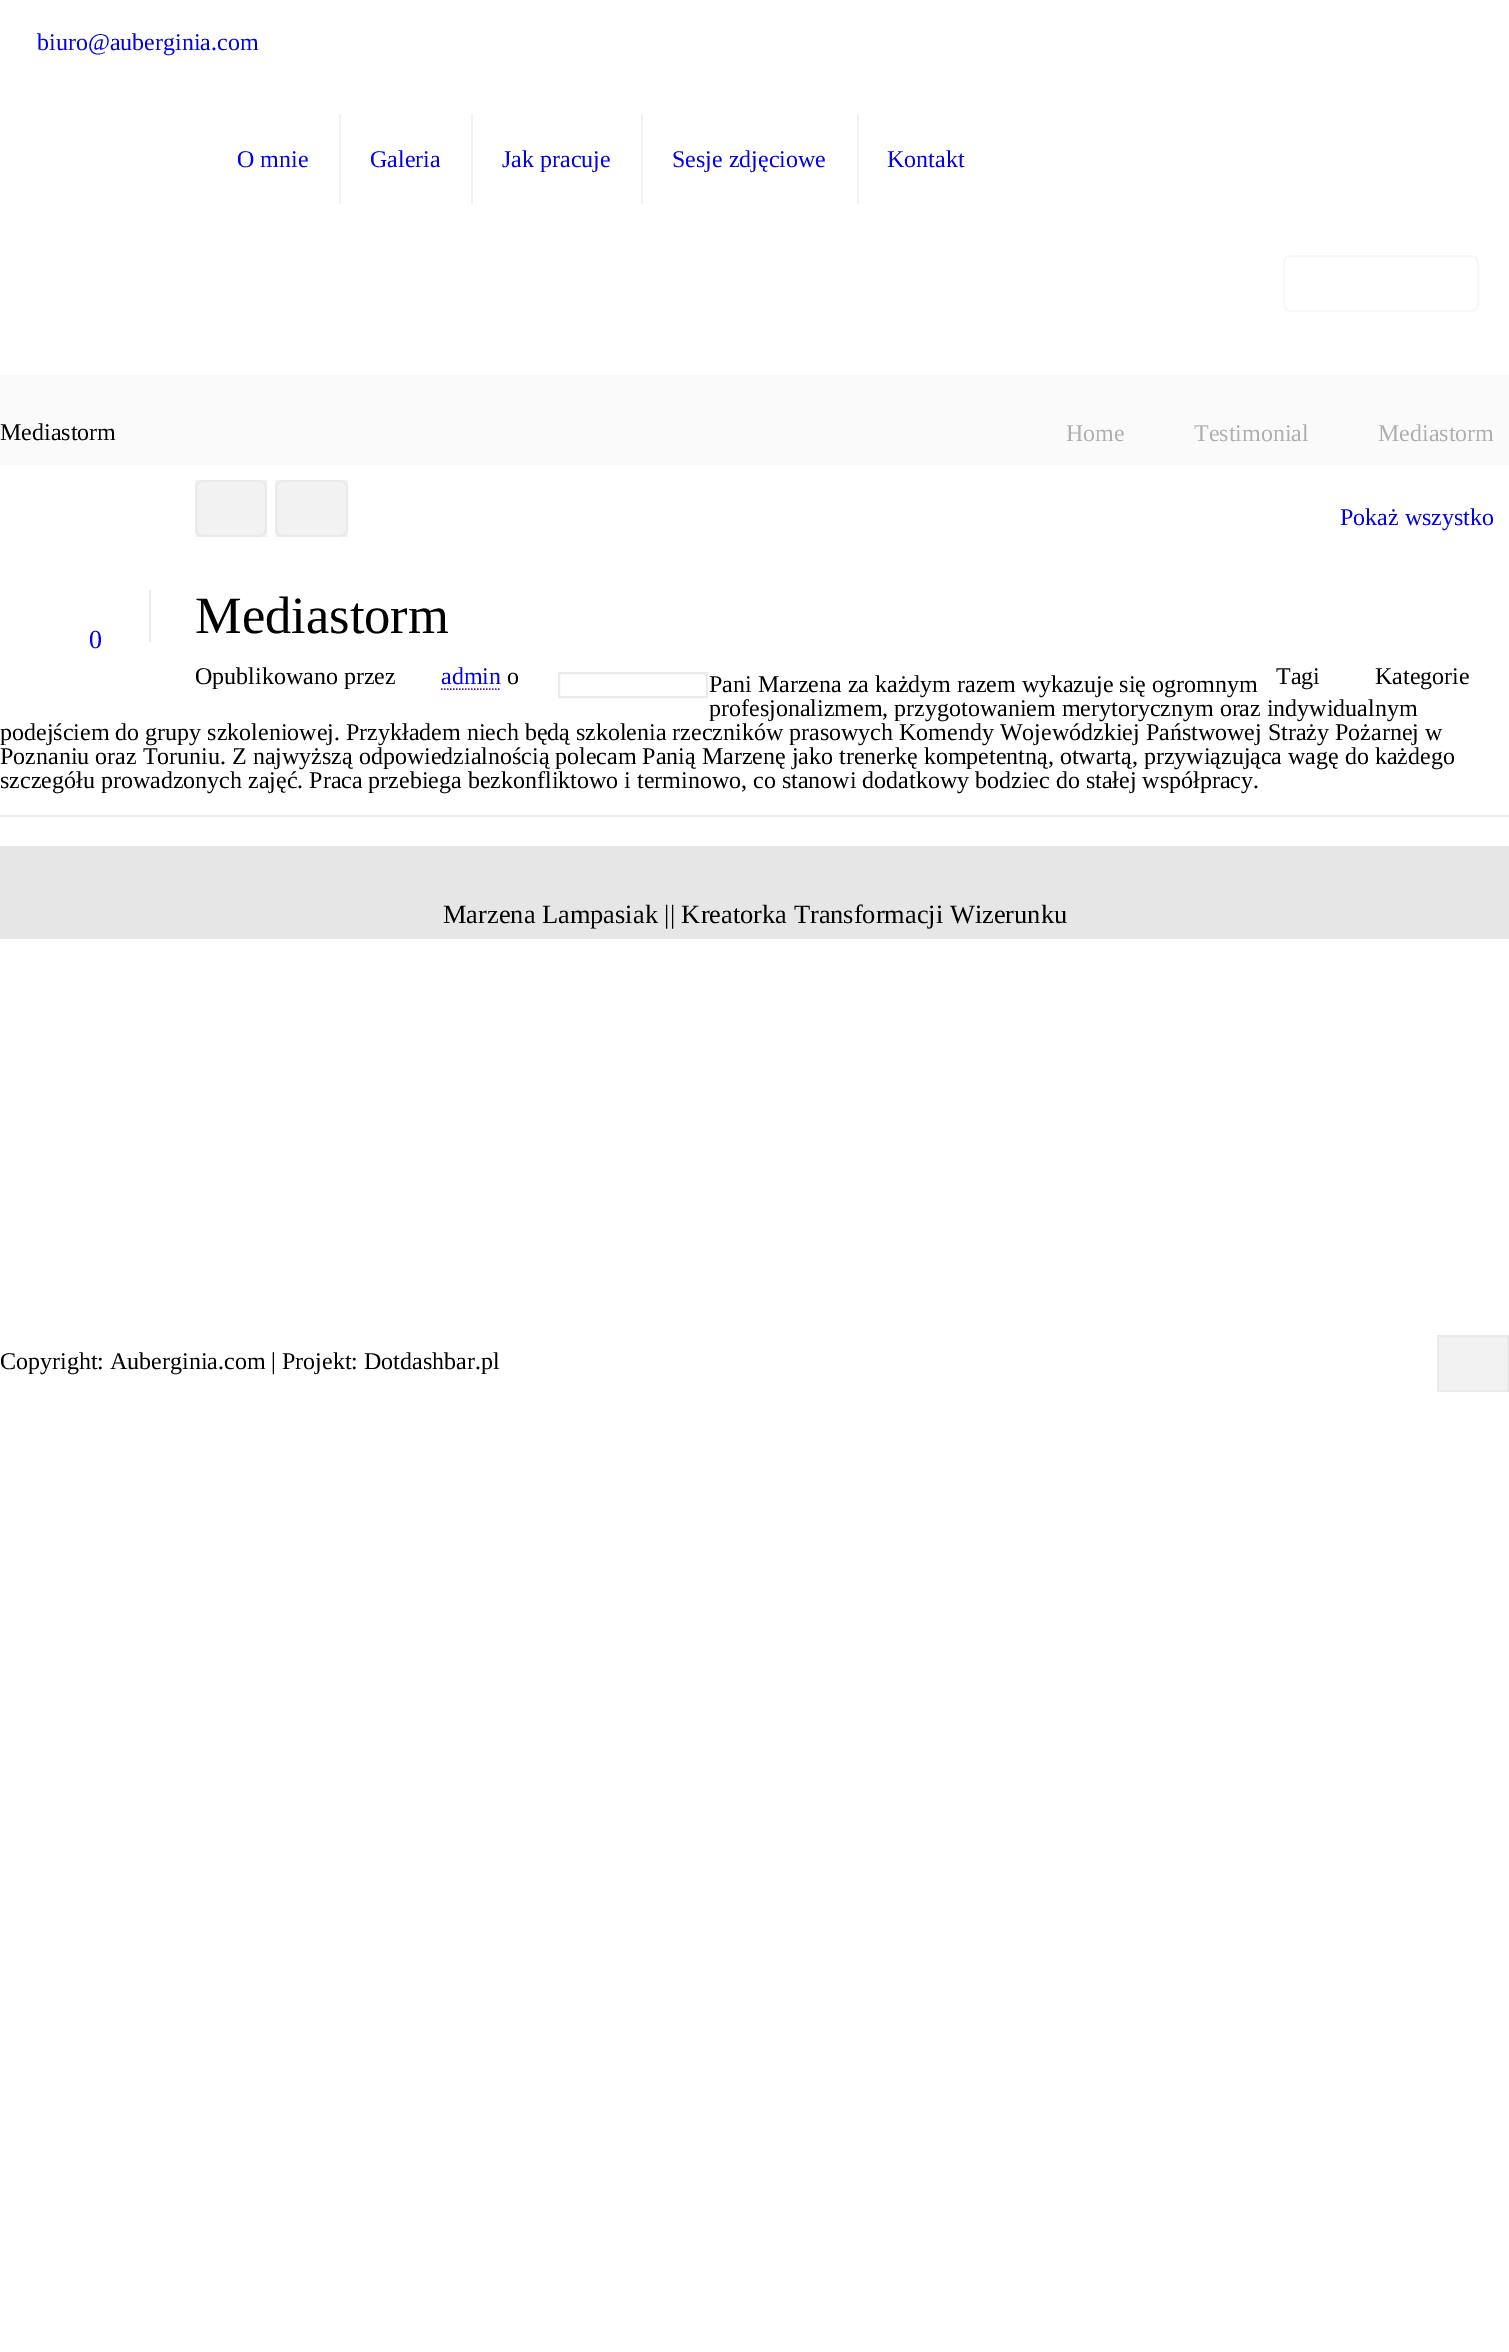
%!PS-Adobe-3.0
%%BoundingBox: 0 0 1509 2352
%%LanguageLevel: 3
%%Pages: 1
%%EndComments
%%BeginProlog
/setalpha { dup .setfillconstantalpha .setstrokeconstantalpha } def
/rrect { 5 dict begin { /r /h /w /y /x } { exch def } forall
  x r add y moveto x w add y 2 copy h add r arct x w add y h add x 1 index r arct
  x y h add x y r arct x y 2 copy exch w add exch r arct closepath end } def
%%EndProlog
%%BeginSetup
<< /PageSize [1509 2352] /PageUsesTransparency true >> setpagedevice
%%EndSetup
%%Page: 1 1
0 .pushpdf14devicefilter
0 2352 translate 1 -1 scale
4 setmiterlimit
1 setgray
0 0 1509 2352 rectfill
0.949 setgray
339 114 2 90 rectfill
471 114 2 90 rectfill
641 114 2 90 rectfill
857 114 2 90 rectfill
0.969 setgray
2 setlinewidth
1284 256 194 55 7 rrect stroke
0.98 setgray
0 375 1509 90 rectfill
0.969 setgray
196 481 70 55 7 rrect stroke
0.05 setalpha
0 setgray
195 480 72 57 rectfill
1 setalpha
0.969 setgray
276 481 71 55 7 rrect stroke
0.05 setalpha
0 setgray
275 480 73 57 rectfill
1 setalpha
0.922 setgray
149 590 2 52 rectfill
0.333 0.102 0.545 setrgbcolor
1.5 setlinewidth
[1.5 1.5] 0 setdash
newpath 441 689 moveto 501 689 lineto stroke
0.922 setgray
2 setlinewidth
[] 0 setdash
559 673 148 24 rectstroke
0 815 1509 2 rectfill
0.902 setgray
0 846 1509 93 rectfill
0.03 setalpha
0 setgray
1438 1336 70 55 rectstroke
0.05 setalpha
1437 1335 72 57 rectfill
/LiberationSerif-Regular [24 0 0 -24 0 0] selectfont
1 setalpha
0 0 0.933 setrgbcolor
37 50 moveto (biuro@auberginia.com) show
237 167 moveto (O mnie) show
370 167 moveto (Galeria) show
502 167 moveto (Jak pracuje) show
672 167 moveto (Sesje zdjęciowe) show
887 167 moveto (Kontakt) show
0 setgray
0 440 moveto (Mediastorm) show
0.686 setgray
1066 441 moveto (Home) show
1194 441 moveto (Testimonial) show
1378 441 moveto (Mediastorm) show
0 0 0.933 setrgbcolor
1340 525 moveto (Pokaż wszystko) show
/LiberationSerif-Regular [26 0 0 -26 0 0] selectfont
89 648 moveto (0) show
/LiberationSerif-Regular [52.5 0 0 -52.5 0 0] selectfont
0 setgray
195 633 moveto (Mediastorm) show
/LiberationSerif-Regular [24 0 0 -24 0 0] selectfont
195 684 moveto (Opublikowano przez) show
0 0 0.933 setrgbcolor
441 684 moveto (admin) show
0 setgray
507 684 moveto (o) show
1276 684 moveto (Tagi) show
1375 684 moveto (Kategorie) show
709 692 moveto (Pani Marzena za każdym razem wykazuje się ogromnym) show
709 716 moveto (profesjonalizmem, przygotowaniem merytorycznym oraz indywidualnym) show
0 740 moveto (podejściem do grupy szkoleniowej. Przykładem niech będą szkolenia rzeczników prasowych Komendy Wojewódzkiej Państwowej Straży Pożarnej w) show
0 764 moveto (Poznaniu oraz Toruniu. Z najwyższą odpowiedzialnością polecam Panią Marzenę jako trenerkę kompetentną, otwartą, przywiązująca wagę do każdego) show
0 788 moveto (szczegółu prowadzonych zajęć. Praca przebiega bezkonfliktowo i terminowo, co stanowi dodatkowy bodziec do stałej współpracy.) show
/LiberationSerif-Regular [26.4 0 0 -26.4 0 0] selectfont
443 923 moveto (Marzena Lampasiak || Kreatorka Transformacji Wizerunku) show
/LiberationSerif-Regular [24 0 0 -24 0 0] selectfont
0 1369 moveto (Copyright: Auberginia.com | Projekt: Dotdashbar.pl) show
.poppdf14devicefilter showpage
%%EOF
